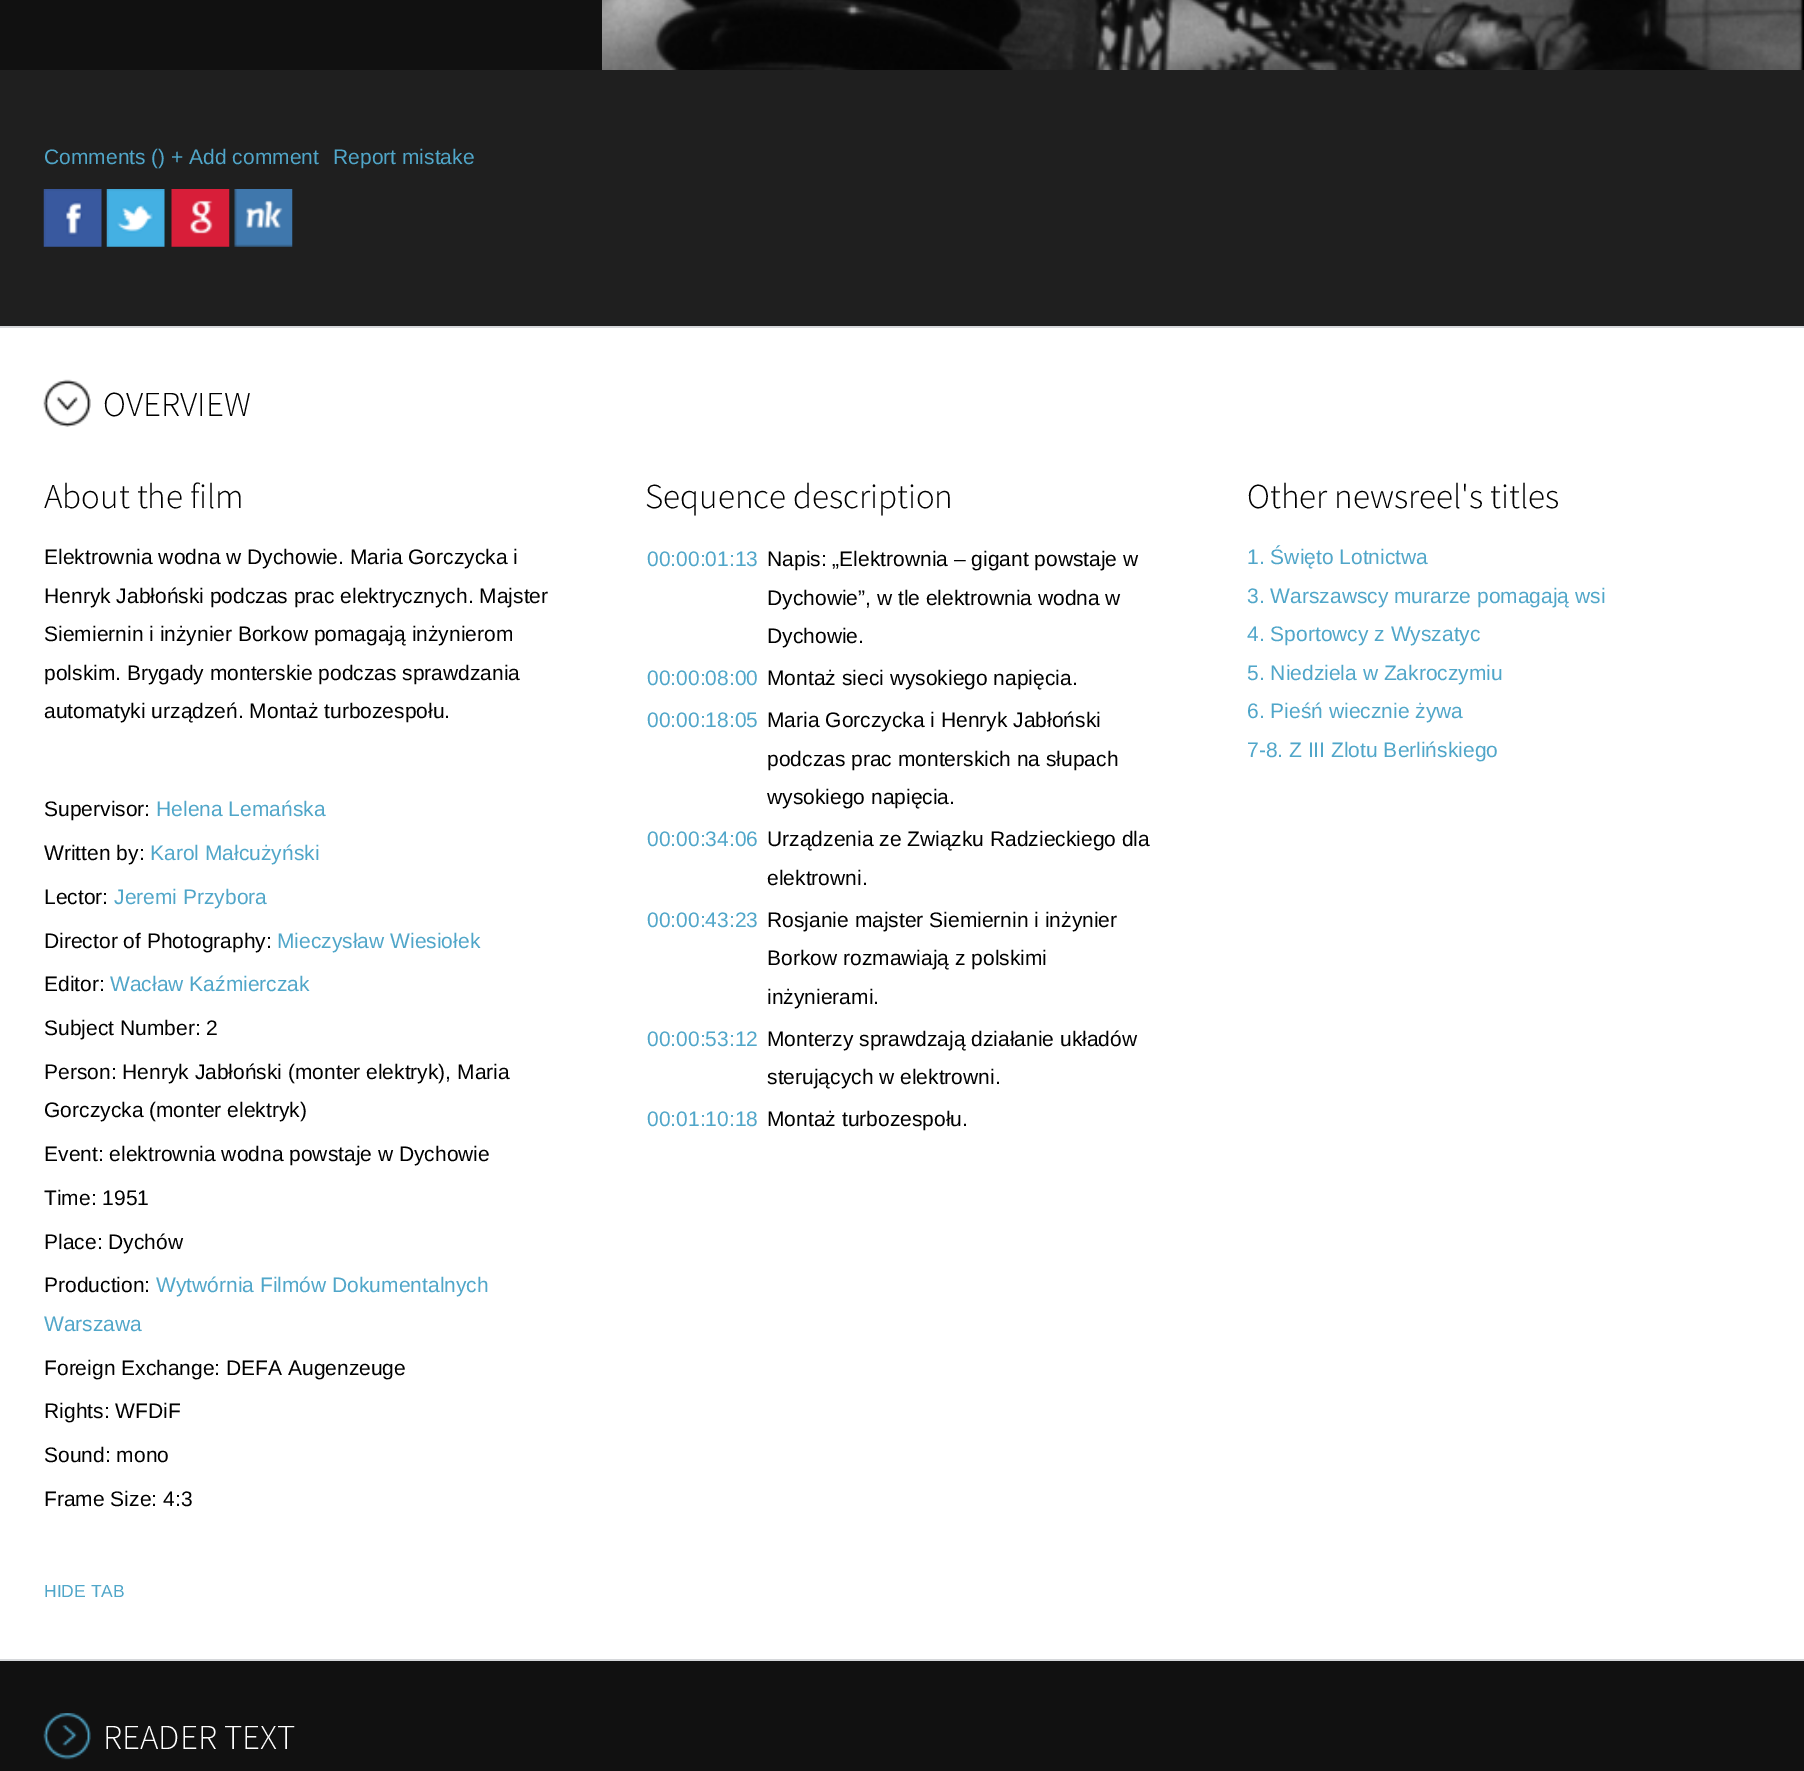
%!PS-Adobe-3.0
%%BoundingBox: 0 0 1804 1771
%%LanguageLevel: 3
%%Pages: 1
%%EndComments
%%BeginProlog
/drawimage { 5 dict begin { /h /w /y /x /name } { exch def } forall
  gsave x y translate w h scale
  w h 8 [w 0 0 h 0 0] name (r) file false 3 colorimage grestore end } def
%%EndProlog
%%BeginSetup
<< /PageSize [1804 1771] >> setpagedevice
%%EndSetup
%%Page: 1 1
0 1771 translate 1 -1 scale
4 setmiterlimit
0.067 setgray
0 0 1804 1771 rectfill
0 setgray
1803 0 1 70 rectfill
(images/1.raw) 602 0 1201 70 drawimage
0.122 setgray
0 70 1804 256 rectfill
(images/2.raw) 43 189 59 58 drawimage
(images/3.raw) 106 189 59 58 drawimage
(images/4.raw) 171 189 59 58 drawimage
(images/5.raw) 234 189 59 58 drawimage
1 setgray
0 328 1804 1331 rectfill
0.839 0.847 0.859 setrgbcolor
0 326 1804 2 rectfill
0 1659 1804 2 rectfill
(images/6.raw) 43 379 48 48 drawimage
(images/7.raw) 43 1713 48 47 drawimage
/LiberationSans-Regular [21 0 0 -21 0 0] selectfont
0.314 0.651 0.788 setrgbcolor
44 164 moveto (Comments \(\) + Add comment) show
333 164 moveto (Report mistake) show
/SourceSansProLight-Light [35 0 0 -35 0 0] selectfont
0 setgray
103 416 moveto (OVERVIEW) show
44 508 moveto (About the film) show
/LiberationSans-Regular [21 0 0 -21 0 0] selectfont
44 564 moveto (Elektrownia wodna w Dychowie. Maria Gorczycka i) show
44 603 moveto (Henryk Jabłoński podczas prac elektrycznych. Majster) show
44 641 moveto (Siemiernin i inżynier Borkow pomagają inżynierom) show
44 680 moveto (polskim. Brygady monterskie podczas sprawdzania) show
44 718 moveto (automatyki urządzeń. Montaż turbozespołu.) show
44 816 moveto (Supervisor:) show
0.314 0.651 0.788 setrgbcolor
156 816 moveto (Helena Lemańska) show
0 setgray
44 860 moveto (Written by:) show
0.314 0.651 0.788 setrgbcolor
150 860 moveto (Karol Małcużyński) show
0 setgray
44 904 moveto (Lector:) show
0.314 0.651 0.788 setrgbcolor
114 904 moveto (Jeremi Przybora) show
0 setgray
44 948 moveto (Director of Photography:) show
0.314 0.651 0.788 setrgbcolor
277 948 moveto (Mieczysław Wiesiołek) show
0 setgray
44 991 moveto (Editor:) show
0.314 0.651 0.788 setrgbcolor
110 991 moveto (Wacław Kaźmierczak) show
0 setgray
44 1035 moveto (Subject Number: 2) show
44 1079 moveto (Person: Henryk Jabłoński \(monter elektryk\), Maria) show
44 1117 moveto (Gorczycka \(monter elektryk\)) show
44 1161 moveto (Event: elektrownia wodna powstaje w Dychowie) show
44 1205 moveto (Time: 1951) show
44 1249 moveto (Place: Dychów) show
44 1292 moveto (Production:) show
0.314 0.651 0.788 setrgbcolor
156 1292 moveto (Wytwórnia Filmów Dokumentalnych) show
44 1331 moveto (Warszawa) show
0 setgray
44 1375 moveto (Foreign Exchange: DEFA Augenzeuge) show
44 1418 moveto (Rights: WFDiF) show
44 1462 moveto (Sound: mono) show
44 1506 moveto (Frame Size: 4:3) show
/SourceSansProLight-Light [35 0 0 -35 0 0] selectfont
645 508 moveto (Sequence description) show
/LiberationSans-Regular [21 0 0 -21 0 0] selectfont
0.314 0.651 0.788 setrgbcolor
647 566 moveto (00:00:01:13) show
0 setgray
767 566 moveto (Napis: „Elektrownia – gigant powstaje w) show
767 605 moveto (Dychowie”, w tle elektrownia wodna w) show
767 643 moveto (Dychowie.) show
0.314 0.651 0.788 setrgbcolor
647 685 moveto (00:00:08:00) show
0 setgray
767 685 moveto (Montaż sieci wysokiego napięcia.) show
0.314 0.651 0.788 setrgbcolor
647 727 moveto (00:00:18:05) show
0 setgray
767 727 moveto (Maria Gorczycka i Henryk Jabłoński) show
767 766 moveto (podczas prac monterskich na słupach) show
767 804 moveto (wysokiego napięcia.) show
0.314 0.651 0.788 setrgbcolor
647 846 moveto (00:00:34:06) show
0 setgray
767 846 moveto (Urządzenia ze Związku Radzieckiego dla) show
767 885 moveto (elektrowni.) show
0.314 0.651 0.788 setrgbcolor
647 927 moveto (00:00:43:23) show
0 setgray
767 927 moveto (Rosjanie majster Siemiernin i inżynier) show
767 965 moveto (Borkow rozmawiają z polskimi) show
767 1004 moveto (inżynierami.) show
0.314 0.651 0.788 setrgbcolor
647 1046 moveto (00:00:53:12) show
0 setgray
767 1046 moveto (Monterzy sprawdzają działanie układów) show
767 1084 moveto (sterujących w elektrowni.) show
0.314 0.651 0.788 setrgbcolor
647 1126 moveto (00:01:10:18) show
0 setgray
767 1126 moveto (Montaż turbozespołu.) show
/SourceSansProLight-Light [35 0 0 -35 0 0] selectfont
1247 508 moveto (Other newsreel's titles) show
/LiberationSans-Regular [21 0 0 -21 0 0] selectfont
0.314 0.651 0.788 setrgbcolor
1247 564 moveto (1. Święto Lotnictwa) show
1247 603 moveto (3. Warszawscy murarze pomagają wsi) show
1247 641 moveto (4. Sportowcy z Wyszatyc) show
1247 680 moveto (5. Niedziela w Zakroczymiu) show
1247 718 moveto (6. Pieśń wiecznie żywa) show
1247 757 moveto (7-8. Z III Zlotu Berlińskiego) show
/LiberationSans-Regular [17.5 0 0 -17.5 0 0] selectfont
44 1597 moveto (HIDE TAB) show
/SourceSansProLight-Light [35 0 0 -35 0 0] selectfont
1 setgray
103 1749 moveto (READER TEXT) show
showpage
%%EOF
